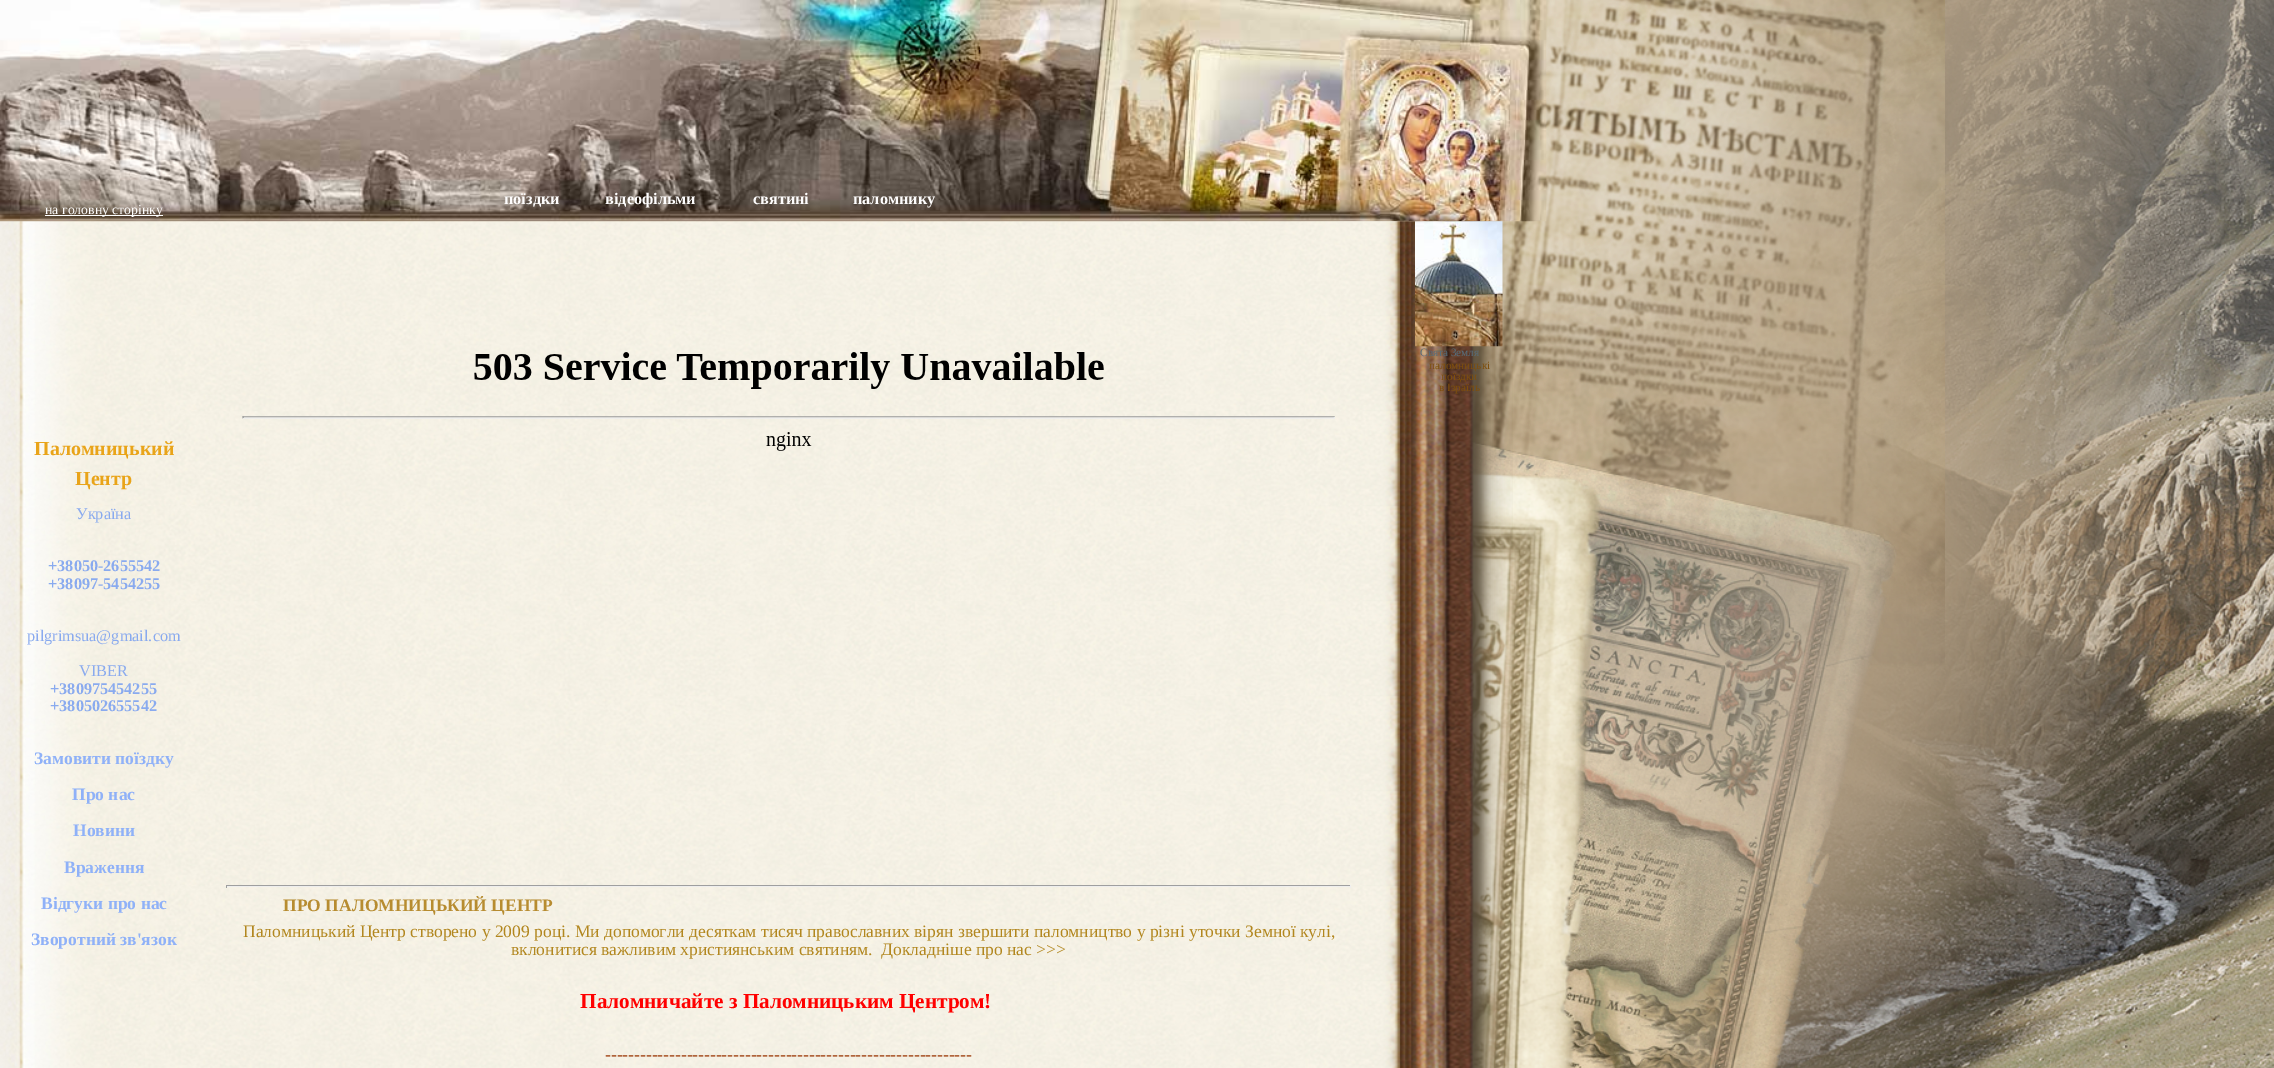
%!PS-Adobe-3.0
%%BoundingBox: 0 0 2274 1068
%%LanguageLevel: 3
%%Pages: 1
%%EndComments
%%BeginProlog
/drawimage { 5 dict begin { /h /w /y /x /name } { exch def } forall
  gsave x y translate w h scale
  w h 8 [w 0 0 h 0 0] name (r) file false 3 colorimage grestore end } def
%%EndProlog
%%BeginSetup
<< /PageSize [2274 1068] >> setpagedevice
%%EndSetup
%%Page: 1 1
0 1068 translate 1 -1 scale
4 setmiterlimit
0.698 0.62 0.51 setrgbcolor
0 0 2274 1068 rectfill
(images/1.raw) 1666 0 608 1068 drawimage
(images/2.raw) 1230 0 715 1068 drawimage
(images/3.raw) 0 0 1547 222 drawimage
1 setgray
45 215 118 1 rectfill
(images/5.raw) 0 221 1513 847 drawimage
(images/4.raw) 1415 221 88 126 drawimage
(images/6.raw) 242 352 1093 99 drawimage
0.624 setgray
226 885 1125 1 rectfill
0.933 setgray
1350 885 1 3 rectfill
226 886 1125 1 rectfill
0.624 setgray
226 885 1 3 rectfill
/LiberationSerif-Bold [16.25 0 0 -16.25 0 0] selectfont
0.996 0.992 0.992 setrgbcolor
504 204 moveto (поїздки) show
605 204 moveto (відеофільми) show
753 204 moveto (святині) show
853 204 moveto (паломнику) show
/LiberationSerif-Regular [13.75 0 0 -13.75 0 0] selectfont
45 214 moveto (на головну сторінку) show
/LiberationSerif-Bold [20 0 0 -20 0 0] selectfont
0.914 0.643 0.098 setrgbcolor
34 455 moveto (Паломницький) show
75 485 moveto (Центр) show
/LiberationSerif-Regular [16.25 0 0 -16.25 0 0] selectfont
0.537 0.667 0.937 setrgbcolor
76 519 moveto (Україна) show
/LiberationSerif-Bold [16.25 0 0 -16.25 0 0] selectfont
48 571 moveto (+38050-2655542) show
48 589 moveto (+38097-5454255) show
/LiberationSerif-Regular [16.25 0 0 -16.25 0 0] selectfont
27 641 moveto (pilgrimsua@gmail.com) show
79 676 moveto (VIBER) show
/LiberationSerif-Bold [16.25 0 0 -16.25 0 0] selectfont
50 694 moveto (+380975454255) show
50 711 moveto (+380502655542) show
/LiberationSerif-Bold [17.5 0 0 -17.5 0 0] selectfont
0.561 0.694 0.973 setrgbcolor
34 764 moveto (Замовити поїздку) show
72 800 moveto (Про нас) show
73 836 moveto (Новини) show
64 873 moveto (Враження) show
41 909 moveto (Відгуки про нас) show
31 945 moveto (Зворотний зв'язок) show
/LiberationSerif-Regular [11.25 0 0 -11.25 0 0] selectfont
0.341 0.427 0.478 setrgbcolor
1420 356 moveto (Свята Земля) show
0.498 0.31 0.047 setrgbcolor
1429 369 moveto (паломницькі) show
1441 380 moveto (поїздки) show
1439 391 moveto (в Ізраїль) show
/LiberationSerif-Bold [17.5 0 0 -17.5 0 0] selectfont
0.718 0.549 0.188 setrgbcolor
283 911 moveto (ПРО ПАЛОМНИЦЬКИЙ ЦЕНТР) show
/LiberationSerif-Regular [17.5 0 0 -17.5 0 0] selectfont
0.698 0.529 0.122 setrgbcolor
243 937 moveto (Паломницький Центр створено у 2009 році. Ми допомогли десяткам тисяч православних вірян звершити паломництво у різні уточки Земної кулі,) show
511 955 moveto (вклонитися важливим християнським святиням.  Докладніше про нас >>>) show
/LiberationSerif-Bold [21.25 0 0 -21.25 0 0] selectfont
1 0 0 setrgbcolor
580 1008 moveto (Паломничайте з Паломницьким Центром!) show
/LiberationSerif-Regular [17.5 0 0 -17.5 0 0] selectfont
0.6 0.2 0 setrgbcolor
605 1060 moveto (---------------------------------------------------------------) show
showpage
%%EOF
